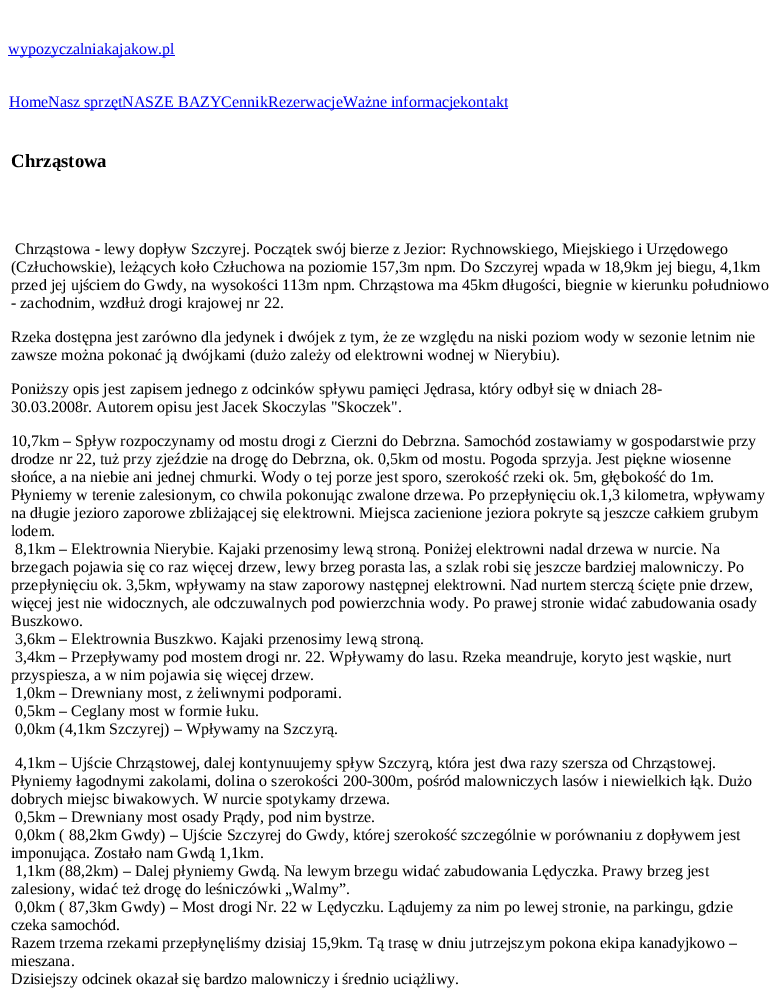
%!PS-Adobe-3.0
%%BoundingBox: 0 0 780 988
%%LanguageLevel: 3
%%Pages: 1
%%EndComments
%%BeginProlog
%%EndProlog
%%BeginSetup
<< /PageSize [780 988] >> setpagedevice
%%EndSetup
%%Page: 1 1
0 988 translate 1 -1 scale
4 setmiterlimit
1 setgray
0 0 780 988 rectfill
0 0 0.933 setrgbcolor
8 55 167 1 rectfill
9 108 113 1 rectfill
122 108 386 1 rectfill
/LiberationSerif-Regular [16 0 0 -16 0 0] selectfont
8 54 moveto (wypozyczalniakajakow.pl) show
9 107 moveto (HomeNasz sprzętNASZE BAZYCennik) show
268 107 moveto (RezerwacjeWażne informacjekontakt) show
/LiberationSerif-Bold [18.75 0 0 -18.75 0 0] selectfont
0 setgray
11 167 moveto (Chrząstowa) show
/LiberationSerif-Regular [16 0 0 -16 0 0] selectfont
15 254 moveto (Chrząstowa - lewy dopływ Szczyrej. Początek swój bierze z Jezior: Rychnowskiego, Miejskiego i Urzędowego) show
11 272 moveto (\(Człuchowskie\), leżących koło Człuchowa na poziomie 157,3m npm. Do Szczyrej wpada w 18,9km jej biegu, 4,1km) show
11 290 moveto (przed jej ujściem do Gwdy, na wysokości 113m npm. Chrząstowa ma 45km długości, biegnie w kierunku południowo) show
11 308 moveto (- zachodnim, wzdłuż drogi krajowej nr 22.) show
11 342 moveto (Rzeka dostępna jest zarówno dla jedynek i dwójek z tym, że ze względu na niski poziom wody w sezonie letnim nie) show
11 360 moveto (zawsze można pokonać ją dwójkami \(dużo zależy od elektrowni wodnej w Nierybiu\).) show
11 394 moveto (Poniższy opis jest zapisem jednego z odcinków spływu pamięci Jędrasa, który odbył się w dniach 28-) show
11 412 moveto (30.03.2008r. Autorem opisu jest Jacek Skoczylas "Skoczek".) show
11 446 moveto (10,7km – Spływ rozpoczynamy od mostu drogi z Cierzni do Debrzna. Samochód zostawiamy w gospodarstwie przy) show
11 464 moveto (drodze nr 22, tuż przy zjeździe na drogę do Debrzna, ok. 0,5km od mostu. Pogoda sprzyja. Jest piękne wiosenne) show
11 482 moveto (słońce, a na niebie ani jednej chmurki. Wody o tej porze jest sporo, szerokość rzeki ok. 5m, głębokość do 1m.) show
11 500 moveto (Płyniemy w terenie zalesionym, co chwila pokonując zwalone drzewa. Po przepłynięciu ok.1,3 kilometra, wpływamy) show
11 518 moveto (na długie jezioro zaporowe zbliżającej się elektrowni. Miejsca zacienione jeziora pokryte są jeszcze całkiem grubym) show
11 536 moveto (lodem.) show
15 554 moveto (8,1km – Elektrownia Nierybie. Kajaki przenosimy lewą stroną. Poniżej elektrowni nadal drzewa w nurcie. Na) show
11 572 moveto (brzegach pojawia się co raz więcej drzew, lewy brzeg porasta las, a szlak robi się jeszcze bardziej malowniczy. Po) show
11 590 moveto (przepłynięciu ok. 3,5km, wpływamy na staw zaporowy następnej elektrowni. Nad nurtem sterczą ścięte pnie drzew,) show
11 608 moveto (więcej jest nie widocznych, ale odczuwalnych pod powierzchnia wody. Po prawej stronie widać zabudowania osady) show
11 626 moveto (Buszkowo.) show
15 644 moveto (3,6km – Elektrownia Buszkwo. Kajaki przenosimy lewą stroną.) show
15 662 moveto (3,4km – Przepływamy pod mostem drogi nr. 22. Wpływamy do lasu. Rzeka meandruje, koryto jest wąskie, nurt) show
11 680 moveto (przyspiesza, a w nim pojawia się więcej drzew.) show
15 698 moveto (1,0km – Drewniany most, z żeliwnymi podporami.) show
15 716 moveto (0,5km – Ceglany most w formie łuku.) show
15 734 moveto (0,0km \(4,1km Szczyrej\) – Wpływamy na Szczyrą.) show
15 768 moveto (4,1km – Ujście Chrząstowej, dalej kontynuujemy spływ Szczyrą, która jest dwa razy szersza od Chrząstowej.) show
11 786 moveto (Płyniemy łagodnymi zakolami, dolina o szerokości 200-300m, pośród malowniczych lasów i niewielkich łąk. Dużo) show
11 804 moveto (dobrych miejsc biwakowych. W nurcie spotykamy drzewa.) show
15 822 moveto (0,5km – Drewniany most osady Prądy, pod nim bystrze.) show
15 840 moveto (0,0km \( 88,2km Gwdy\) – Ujście Szczyrej do Gwdy, której szerokość szczególnie w porównaniu z dopływem jest) show
11 858 moveto (imponująca. Zostało nam Gwdą 1,1km.) show
15 876 moveto (1,1km \(88,2km\) – Dalej płyniemy Gwdą. Na lewym brzegu widać zabudowania Lędyczka. Prawy brzeg jest) show
11 894 moveto (zalesiony, widać też drogę do leśniczówki „Walmy”.) show
15 912 moveto (0,0km \( 87,3km Gwdy\) – Most drogi Nr. 22 w Lędyczku. Lądujemy za nim po lewej stronie, na parkingu, gdzie) show
11 930 moveto (czeka samochód.) show
11 948 moveto (Razem trzema rzekami przepłynęliśmy dzisiaj 15,9km. Tą trasę w dniu jutrzejszym pokona ekipa kanadyjkowo –) show
11 966 moveto (mieszana.) show
11 984 moveto (Dzisiejszy odcinek okazał się bardzo malowniczy i średnio uciążliwy.) show
showpage
%%EOF
